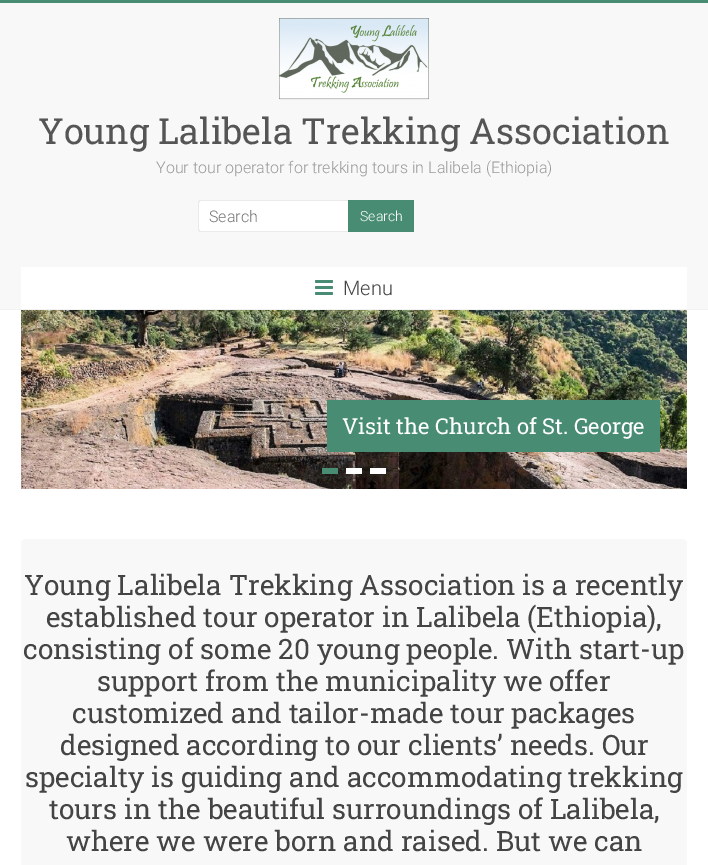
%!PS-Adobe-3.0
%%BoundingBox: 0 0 708 865
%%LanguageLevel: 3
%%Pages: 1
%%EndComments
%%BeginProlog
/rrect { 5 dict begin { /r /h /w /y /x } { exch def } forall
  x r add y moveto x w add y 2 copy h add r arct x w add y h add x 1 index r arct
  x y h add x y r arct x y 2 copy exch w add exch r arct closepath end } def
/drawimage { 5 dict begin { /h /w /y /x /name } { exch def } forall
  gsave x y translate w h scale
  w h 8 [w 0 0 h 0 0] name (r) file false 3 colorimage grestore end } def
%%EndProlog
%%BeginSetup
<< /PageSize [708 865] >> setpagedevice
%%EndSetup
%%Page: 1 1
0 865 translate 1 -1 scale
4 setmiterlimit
1 setgray
0 0 708 865 rectfill
0.278 0.549 0.451 setrgbcolor
0 0 708 3 rectfill
0.973 setgray
0 3 708 306 rectfill
0.949 setgray
0 309 708 1 rectfill
(images/1.raw) 279 18 150 82 drawimage
1 setgray
newpath 201 200 moveto 348 200 lineto 348 232 lineto 201 232 lineto 199.5 232 198 230.5 198 229 curveto 198 203 lineto 198 201.5 199.5 200 201 200 curveto closepath fill
0.918 setgray
newpath 201 200 moveto 348 200 lineto 348 232 lineto 201 232 lineto 199 232 198 231 198 229 curveto 198 203 lineto 198 201 199 200 201 200 curveto closepath 201 201 moveto 348 201 lineto 348 231 lineto 201 231 lineto 200 231 199 230 199 229 curveto 199 203 lineto 199 202 200 201 201 201 curveto closepath eofill
0.278 0.549 0.451 setrgbcolor
348 200 66 32 rectfill
1 setgray
21 267 666 42 rectfill
(images/2.raw) 315 280 18 15 drawimage
(images/3.raw) 21 310 666 179 drawimage
0.278 0.549 0.451 setrgbcolor
327 400 333 52 rectfill
322 468 16 6 rectfill
1 setgray
346 468 16 6 rectfill
370 468 16 6 rectfill
0.973 setgray
21 539 666 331 5 rrect fill
/RobotoSlab-Regular [36 0 0 -36 0 0] selectfont
0.333 setgray
38 144 moveto (Young Lalibela Trekking Association) show
/Roboto-Light [16 0 0 -16 0 0] selectfont
0.6 setgray
156 173 moveto (Your tour operator for trekking tours in Lalibela \(Ethiopia\)) show
0.459 setgray
209 222 moveto (Search) show
/Roboto-Light [14 0 0 -14 0 0] selectfont
1 setgray
360 221 moveto (Search) show
/Roboto-Light [20 0 0 -20 0 0] selectfont
0.267 setgray
343 295 moveto (Menu) show
/RobotoSlab-Regular [22 0 0 -22 0 0] selectfont
1 setgray
342 434 moveto (Visit the Church of St. George) show
/RobotoSlab-Regular [28 0 0 -28 0 0] selectfont
0.267 setgray
24 595 moveto (Young Lalibela Trekking Association is a recently) show
46 627 moveto (established tour operator in Lalibela \(Ethiopia\),) show
23 659 moveto (consisting of some 20 young people. With start-up) show
97 691 moveto (support from the municipality we offer) show
72 723 moveto (customized and tailor-made tour packages) show
60 755 moveto (designed according to our clients’ needs. Our) show
25 787 moveto (specialty is guiding and accommodating trekking) show
49 819 moveto (tours in the beautiful surroundings of Lalibela,) show
66 851 moveto (where we were born and raised. But we can) show
showpage
%%EOF
